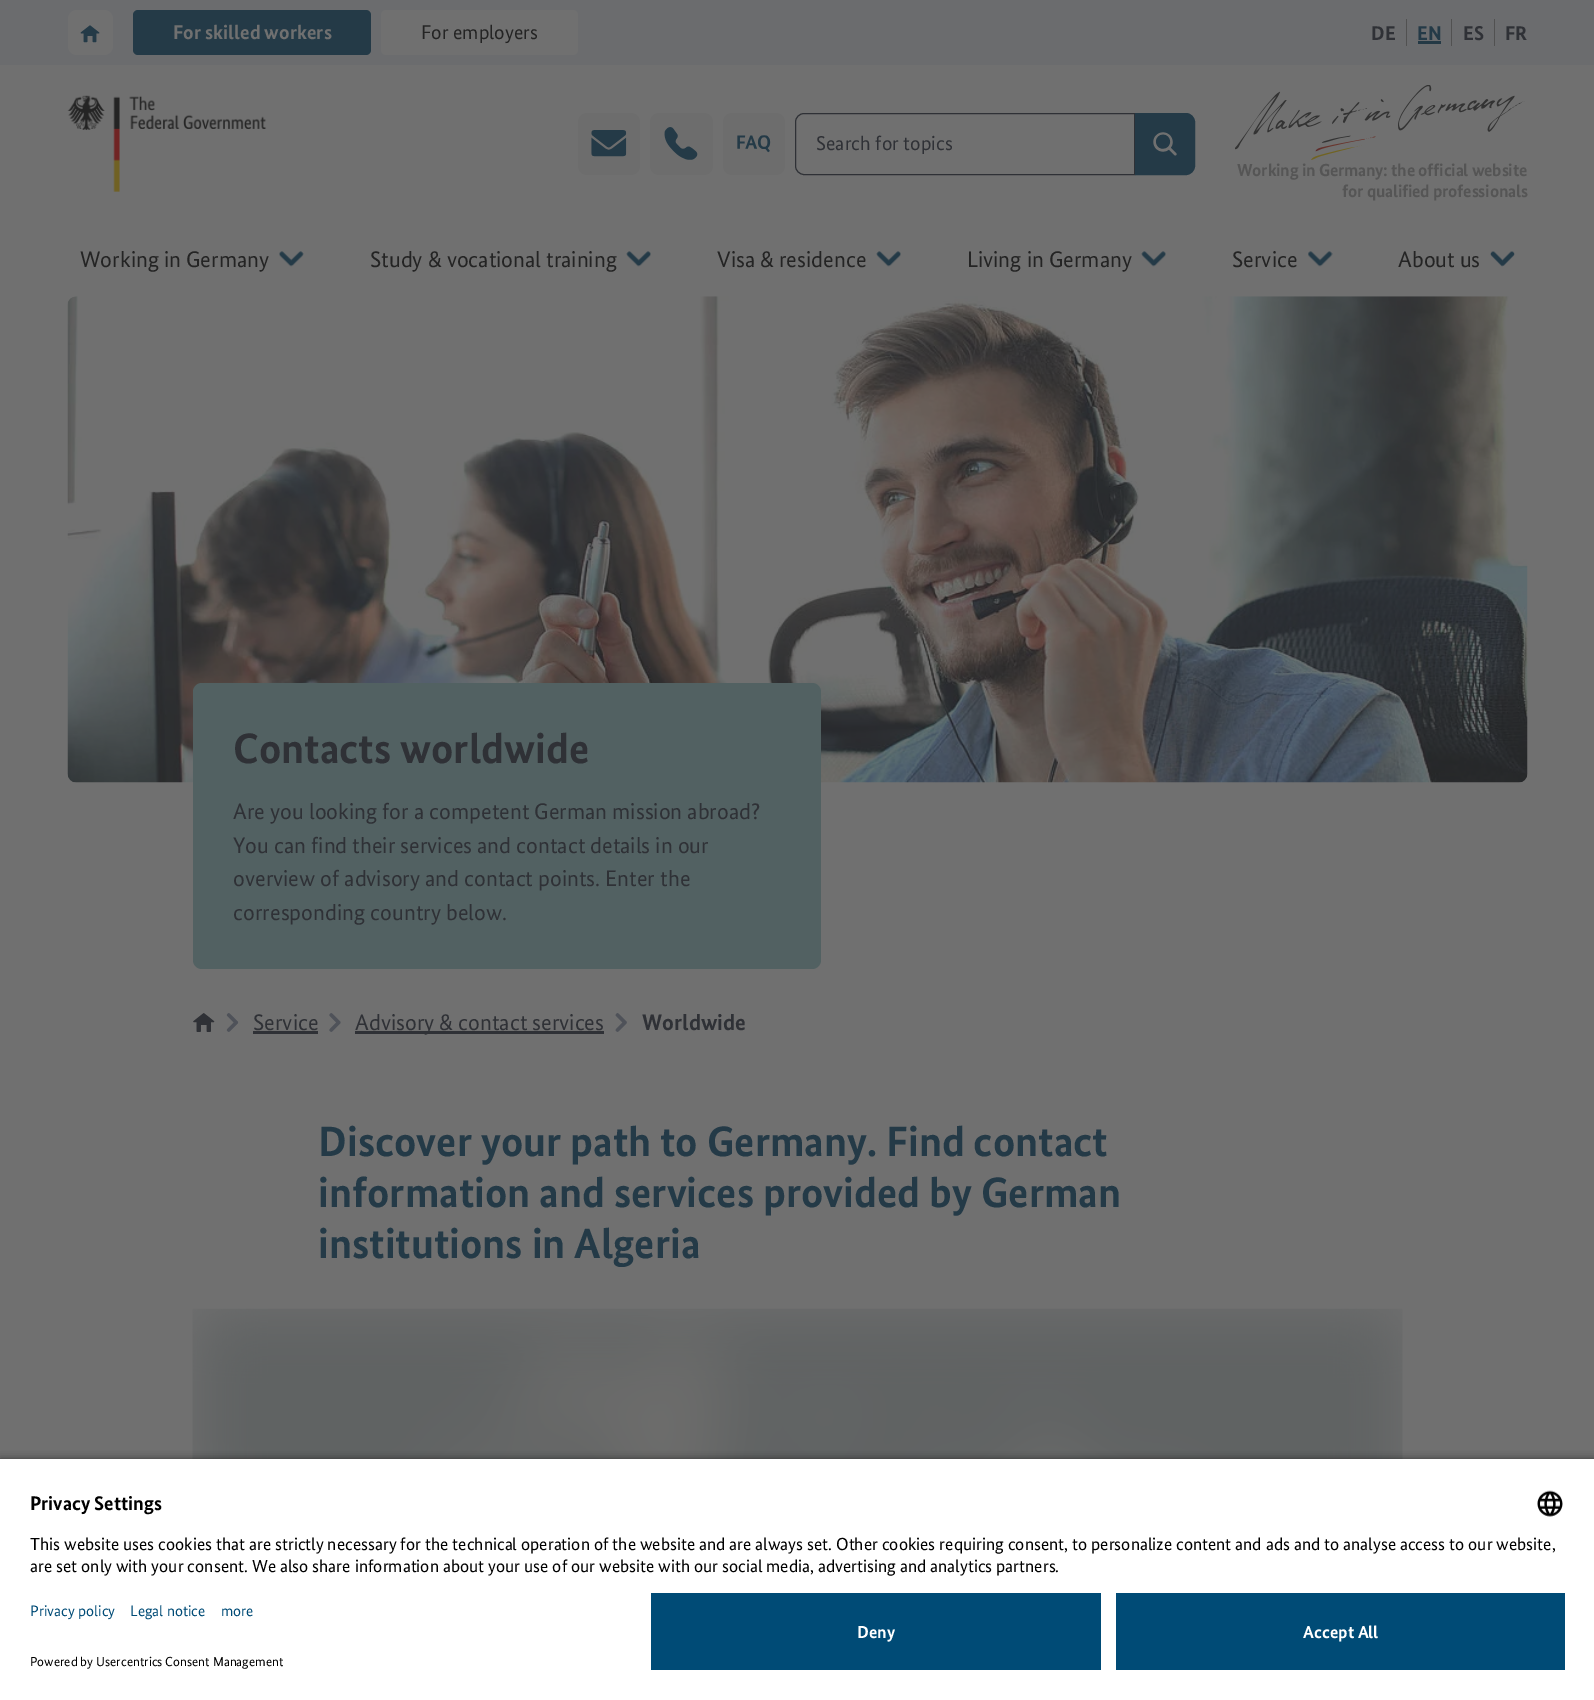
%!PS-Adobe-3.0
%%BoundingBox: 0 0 1594 1700
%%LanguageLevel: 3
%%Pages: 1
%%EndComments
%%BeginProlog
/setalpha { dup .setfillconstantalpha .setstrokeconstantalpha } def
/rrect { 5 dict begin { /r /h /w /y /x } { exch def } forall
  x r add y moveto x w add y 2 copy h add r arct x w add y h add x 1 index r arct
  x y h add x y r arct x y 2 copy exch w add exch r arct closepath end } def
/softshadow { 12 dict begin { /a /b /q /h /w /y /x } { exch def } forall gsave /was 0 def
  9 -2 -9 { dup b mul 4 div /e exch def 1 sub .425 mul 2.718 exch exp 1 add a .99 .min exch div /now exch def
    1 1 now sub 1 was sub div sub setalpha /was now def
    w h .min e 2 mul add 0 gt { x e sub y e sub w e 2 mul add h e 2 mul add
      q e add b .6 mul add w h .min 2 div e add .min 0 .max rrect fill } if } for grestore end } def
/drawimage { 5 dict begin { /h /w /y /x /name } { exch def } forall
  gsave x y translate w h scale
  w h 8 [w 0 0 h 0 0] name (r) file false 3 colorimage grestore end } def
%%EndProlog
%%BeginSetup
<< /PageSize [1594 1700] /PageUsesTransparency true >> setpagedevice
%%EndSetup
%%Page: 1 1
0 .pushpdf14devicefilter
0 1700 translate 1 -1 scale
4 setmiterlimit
0.439 setgray
0 0 1594 1700 rectfill
0.42 0.424 0.431 setrgbcolor
0 0 1594 65 rectfill
0.439 setgray
68 10 45 45 9 rrect fill
(images/1.raw) 80 25 20 18 drawimage
0.141 0.227 0.278 setrgbcolor
133 10 238 45 5 rrect fill
0.439 setgray
381 10 197 45 5 rrect fill
0.318 setgray
1406 19 1 27 rectfill
1451 19 1 27 rectfill
0.141 0.224 0.271 setrgbcolor
1418 41 23 3 rectfill
0.318 setgray
1494 19 1 27 rectfill
(images/2.raw) 67 95 200 97 drawimage
0.427 setgray
578 113 62 62 9 rrect fill
(images/3.raw) 591 130 36 27 drawimage
650 113 63 62 9 rrect fill
(images/4.raw) 664 127 34 33 drawimage
723 113 62 62 9 rrect fill
(images/5.raw) 737 135 34 18 drawimage
0.184 0.192 0.212 setrgbcolor
newpath 804 113.5 moveto 1134.5 113.5 lineto 1134.5 174.5 lineto 804 174.5 lineto 799.5 174.5 795.5 170.5 795.5 166 curveto 795.5 122 lineto 795.5 117.5 799.5 113.5 804 113.5 curveto closepath stroke
0.141 0.227 0.278 setrgbcolor
newpath 1135.5 113.5 moveto 1186 113.5 lineto 1190.5 113.5 1194.5 117.5 1194.5 122 curveto 1194.5 166 lineto 1194.5 170.5 1190.5 174.5 1186 174.5 curveto 1135.5 174.5 lineto closepath gsave fill grestore
stroke
(images/6.raw) 1153 132 24 24 drawimage
(images/7.raw) 1235 85 290 75 drawimage
(images/8.raw) 279 251 25 16 drawimage
(images/9.raw) 626 251 25 16 drawimage
(images/9.raw) 876 251 25 16 drawimage
(images/9.raw) 1141 251 25 16 drawimage
(images/10.raw) 1308 251 25 16 drawimage
(images/11.raw) 1490 251 25 16 drawimage
(images/12.raw) 67 296 1461 487 drawimage
0.322 0.38 0.384 setrgbcolor
193 683 628 286 9 rrect fill
(images/13.raw) 193 1013 22 19 drawimage
(images/14.raw) 226 1013 13 19 drawimage
0.184 0.192 0.212 setrgbcolor
253 1031 65 3 rectfill
(images/15.raw) 329 1013 12 19 drawimage
355 1031 249 3 rectfill
(images/16.raw) 615 1013 12 19 drawimage
(images/17.raw) 192 1308 1211 151 drawimage
0 setgray
0 1461 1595 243 0 4.5 0.8 softshadow
1 setgray
0 1459 1594 241 rectfill
(images/18.raw) 1537 1490 26 27 drawimage
0 0.294 0.463 setrgbcolor
651 1593 450 77 rectfill
1116 1593 449 77 rectfill
/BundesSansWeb-Bold [20 0 0 -20 0 0] selectfont
0.439 setgray
173 39 moveto (For skilled workers) show
/BundesSansWeb-Regular [20 0 0 -20 0 0] selectfont
0.141 setgray
421 39 moveto (For employers) show
/BundesSansWeb-Bold [20 0 0 -20 0 0] selectfont
0.184 0.192 0.212 setrgbcolor
1371 40 moveto (DE) show
0.141 0.227 0.278 setrgbcolor
1417 40 moveto (EN) show
0.184 0.192 0.212 setrgbcolor
1463 40 moveto (ES) show
1505 40 moveto (FR) show
/BundesSansWeb-Regular [20 0 0 -20 0 0] selectfont
816 150 moveto (Search for topics) show
/BundesSansWeb-Bold [17.5 0 0 -17.5 0 0] selectfont
0.333 setgray
1237 176 moveto -0.2 0 (Working in Germany: the official website) ashow
1342 197 moveto -0.2 0 (for qualified professionals) ashow
/BundesSansWeb-Regular [22.5 0 0 -22.5 0 0] selectfont
0.141 setgray
80 267 moveto (Working in Germany) show
370 267 moveto (Study & vocational training) show
717 267 moveto (Visa & residence) show
967 267 moveto (Living in Germany) show
1232 267 moveto (Service) show
1398 267 moveto (About us) show
/BundesSansWeb-Bold [42.5 0 0 -42.5 0 0] selectfont
0.184 0.192 0.212 setrgbcolor
233 763 moveto (Contacts worldwide) show
/BundesSansWeb-Regular [22.5 0 0 -22.5 0 0] selectfont
233 819 moveto (Are you looking for a competent German mission abroad?) show
233 853 moveto (You can find their services and contact details in our) show
233 886 moveto (overview of advisory and contact points. Enter the) show
233 920 moveto (corresponding country below.) show
253 1030 moveto (Service) show
355 1030 moveto (Advisory & contact services) show
/BundesSansWeb-Bold [22.5 0 0 -22.5 0 0] selectfont
642 1030 moveto (Worldwide) show
/BundesSansWeb-Bold [42.5 0 0 -42.5 0 0] selectfont
0.141 0.227 0.278 setrgbcolor
318 1156 moveto (Discover your path to Germany. Find contact) show
318 1207 moveto (information and services provided by German) show
318 1258 moveto (institutions in Algeria) show
/BundesSansWeb-Bold [19.75 0 0 -19.75 0 0] selectfont
0 setgray
30 1510 moveto (Privacy Settings) show
/BundesSansWeb-Regular [17.5 0 0 -17.5 0 0] selectfont
30 1550 moveto (This website uses cookies that are strictly necessary for the technical operation of the website and are always set. Other cookies requiring consent, to personalize content and ads and to analyse access to our website,) show
30 1572 moveto (are set only with your consent. We also share information about your use of our website with our social media, advertising and analytics partners.) show
/BundesSansWeb-Regular [15.25 0 0 -15.25 0 0] selectfont
0 0.294 0.463 setrgbcolor
30 1616 moveto (Privacy policy) show
130 1616 moveto (Legal notice) show
221 1616 moveto (more) show
/BundesSansWeb-Regular [13.1 0 0 -13.1 0 0] selectfont
0 setgray
30 1666 moveto (Powered by Usercentrics Consent Management) show
/BundesSansWeb-Bold [17.5 0 0 -17.5 0 0] selectfont
1 setgray
857 1638 moveto (Deny) show
1303 1638 moveto (Accept All) show
.poppdf14devicefilter showpage
%%EOF
